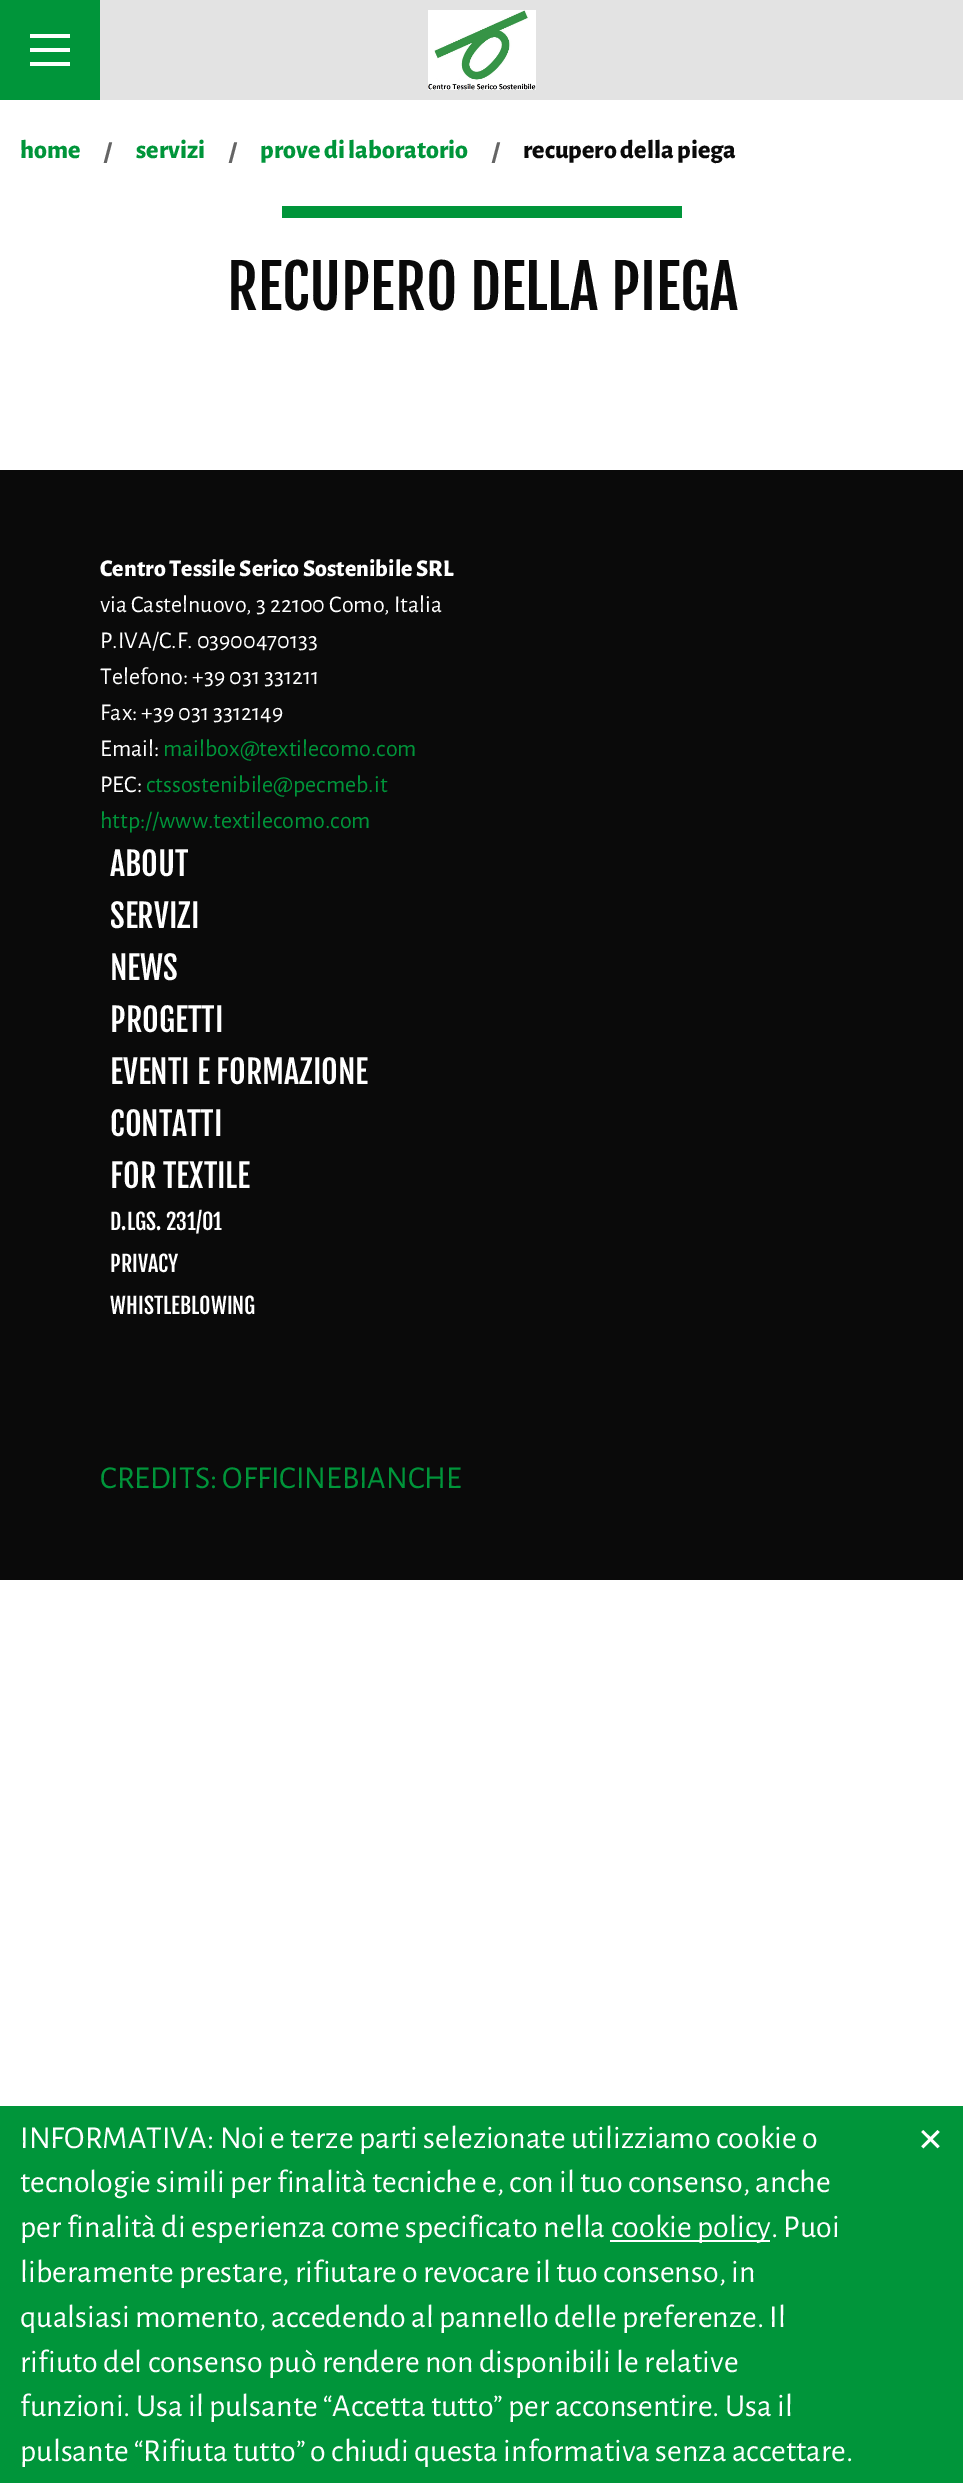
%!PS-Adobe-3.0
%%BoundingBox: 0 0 963 2483
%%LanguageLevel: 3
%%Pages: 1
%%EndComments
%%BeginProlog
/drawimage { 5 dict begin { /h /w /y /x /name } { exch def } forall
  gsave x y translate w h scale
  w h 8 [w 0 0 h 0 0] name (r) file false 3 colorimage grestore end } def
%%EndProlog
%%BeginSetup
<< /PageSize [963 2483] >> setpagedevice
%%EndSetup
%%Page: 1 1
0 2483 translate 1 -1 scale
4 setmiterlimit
1 setgray
0 0 963 2483 rectfill
0.89 setgray
100 0 863 100 rectfill
0 0.584 0.227 setrgbcolor
0 0 100 100 rectfill
0.996 setgray
30 62 40 4 rectfill
30 48 40 4 rectfill
30 34 40 4 rectfill
(images/1.raw) 428 10 108 80 drawimage
0 0.584 0.227 setrgbcolor
282 206 400 12 rectfill
0.039 setgray
0 470 963 1110 rectfill
0 0.584 0.227 setrgbcolor
0 2106 963 377 rectfill
1 setgray
610 2240 160 2 rectfill
/AlegreyaSans-ExtraBold [26 0 0 -26 0 0] selectfont
0 0.584 0.227 setrgbcolor
20 158 moveto (home) show
0.396 setgray
104 160 moveto (/) show
0 0.584 0.227 setrgbcolor
136 158 moveto (servizi) show
0.396 setgray
229 160 moveto (/) show
0 0.584 0.227 setrgbcolor
260 158 moveto (prove di laboratorio) show
0.396 setgray
492 160 moveto (/) show
0.039 setgray
523 158 moveto (recupero della piega) show
/FjallaOne-Regular [60 0 0 -60 0 0] selectfont
227 310 moveto (RECUPERO DELLA PIEGA) show
/AlegreyaSans-ExtraBold [24 0 0 -24 0 0] selectfont
1 setgray
100 576 moveto (Centro Tessile Serico Sostenibile SRL) show
/AlegreyaSans-Regular [24 0 0 -24 0 0] selectfont
100 612 moveto (via Castelnuovo, 3 22100 Como, Italia) show
100 648 moveto (P.IVA/C.F. 03900470133) show
100 684 moveto (Telefono: +39 031 331211) show
100 720 moveto (Fax: +39 031 3312149) show
100 756 moveto (Email:) show
0 0.584 0.227 setrgbcolor
163 756 moveto (mailbox@textilecomo.com) show
1 setgray
100 792 moveto (PEC:) show
0 0.584 0.227 setrgbcolor
146 792 moveto (ctssostenibile@pecmeb.it) show
100 828 moveto (http://www.textilecomo.com) show
/FjallaOne-Regular [32 0 0 -32 0 0] selectfont
1 setgray
110 876 moveto (ABOUT) show
110 928 moveto (SERVIZI) show
110 980 moveto (NEWS) show
110 1032 moveto (PROGETTI) show
110 1084 moveto (EVENTI E FORMAZIONE) show
110 1136 moveto (CONTATTI) show
110 1188 moveto (FOR TEXTILE) show
/FjallaOne-Regular [22 0 0 -22 0 0] selectfont
110 1230 moveto (D.LGS. 231/01) show
110 1272 moveto (PRIVACY) show
110 1314 moveto (WHISTLEBLOWING) show
/AlegreyaSans-Regular [32 0 0 -32 0 0] selectfont
0 0.584 0.227 setrgbcolor
100 1488 moveto (CREDITS: OFFICINEBIANCHE) show
1 setgray
20 2148 moveto (INFORMATIVA: Noi e terze parti selezionate utilizziamo cookie o) show
20 2192 moveto (tecnologie simili per finalità tecniche e, con il tuo consenso, anche) show
20 2237 moveto (per finalità di esperienza come specificato nella) show
611 2237 moveto (cookie policy. Puoi) show
20 2282 moveto (liberamente prestare, rifiutare o revocare il tuo consenso, in) show
20 2327 moveto (qualsiasi momento, accedendo al pannello delle preferenze. Il) show
20 2372 moveto (rifiuto del consenso può rendere non disponibili le relative) show
20 2416 moveto (funzioni. Usa il pulsante “Accetta tutto” per acconsentire. Usa il) show
20 2461 moveto (pulsante “Rifiuta tutto” o chiudi questa informativa senza accettare.) show
/AlegreyaSans-Regular [56 0 0 -56 0 0] selectfont
917 2154 moveto (×) show
showpage
%%EOF
